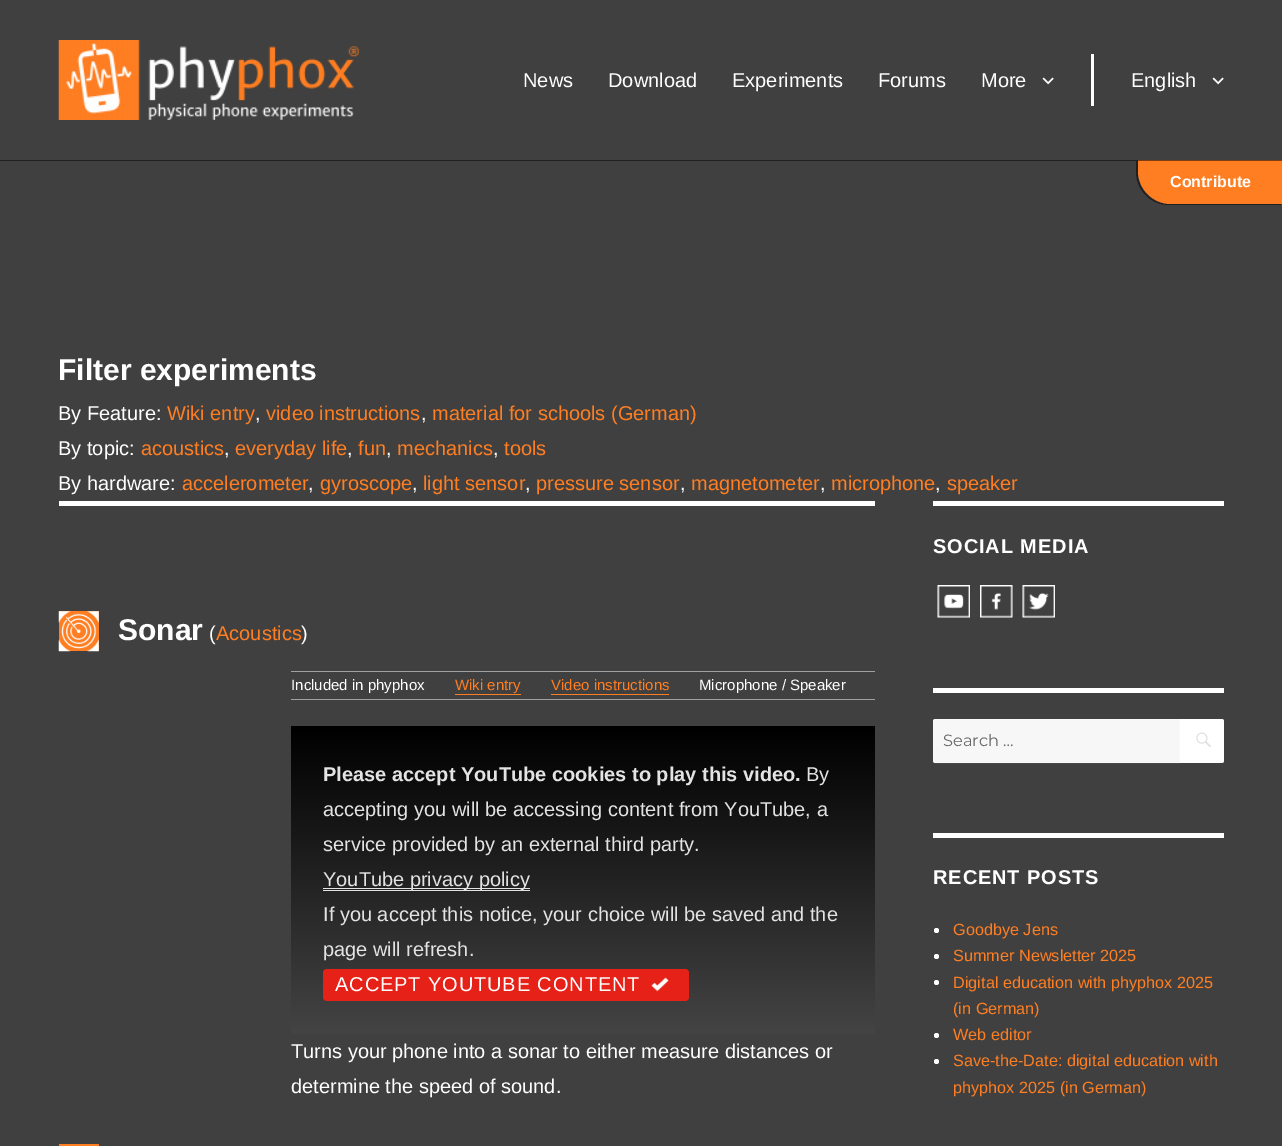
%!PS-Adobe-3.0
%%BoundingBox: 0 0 1282 1146
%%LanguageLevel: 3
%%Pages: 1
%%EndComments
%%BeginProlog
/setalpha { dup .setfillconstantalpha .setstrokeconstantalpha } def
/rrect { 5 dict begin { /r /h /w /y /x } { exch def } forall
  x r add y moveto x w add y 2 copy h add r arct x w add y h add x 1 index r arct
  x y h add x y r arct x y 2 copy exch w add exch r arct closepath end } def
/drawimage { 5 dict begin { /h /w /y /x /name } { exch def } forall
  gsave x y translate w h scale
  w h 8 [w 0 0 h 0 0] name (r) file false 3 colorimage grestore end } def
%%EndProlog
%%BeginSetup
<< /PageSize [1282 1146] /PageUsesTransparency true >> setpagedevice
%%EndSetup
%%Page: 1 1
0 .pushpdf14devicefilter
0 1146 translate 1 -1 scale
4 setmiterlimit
0.251 setgray
0 0 1282 1146 rectfill
0.125 setgray
newpath 0 160 moveto 0 161 lineto 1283 161 lineto 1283 1 lineto 1282 1 lineto 1282 160 lineto closepath fill
(images/1.raw) 58 40 301 80 drawimage
(images/2.raw) 1042 77 12 8 drawimage
1 setgray
1091 54 3 52 rectfill
(images/2.raw) 1212 77 12 8 drawimage
0.125 setgray
newpath 1136 161 moveto 1136 172 lineto 1136 190 1151 205 1169 205 curveto 1281 205 lineto 1281 204 lineto 1170 204 lineto 1152 204 1138 190 1138 172 curveto 1138 161 lineto closepath fill
1 0.494 0.133 setrgbcolor
newpath 1138 160 moveto 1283 160 lineto 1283 204 lineto 1171 204 lineto 1153 204 1138 189 1138 171 curveto closepath fill
0.502 0.247 0.067 setrgbcolor
newpath 1138 161 moveto 1282 161 lineto 1282 204 lineto 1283 204 lineto 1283 160 lineto 1138 160 lineto closepath fill
1 setgray
59 501 816 5 rectfill
1 0.494 0.133 setrgbcolor
59 611 40 40 rectfill
(images/3.raw) 58 611 41 41 drawimage
0.627 setgray
291 671 584 1 rectfill
291 699 584 1 rectfill
1 0.494 0.133 setrgbcolor
455 694 66 1 rectfill
newpath 551 678 moveto 551 695 lineto 669 695 lineto 669 678 lineto 669 694 lineto 551 694 lineto closepath fill
gsave newpath 291 726 moveto 875 726 lineto 875 1034 lineto 291 1034 lineto closepath clip newpath
<< /ShadingType 2 /ColorSpace /DeviceRGB /Coords [583 726 583 1034] /Extend [true true] /Function << /FunctionType 2 /Domain [0 1] /C0 [0 0 0] /C1 [0.267 0.267 0.267] /N 1 >> >> shfill grestore
0.89 setgray
323 890 207 1 rectfill
323 888 207 1 rectfill
0.902 0.129 0.09 setrgbcolor
323 969 366 32 4 rrect fill
(images/4.raw) 651 977 18 15 drawimage
1 0.494 0.133 setrgbcolor
59 1144 40 2 rectfill
1 setgray
933 501 291 5 rectfill
(images/5.raw) 937 585 33 33 drawimage
(images/6.raw) 980 585 33 33 drawimage
(images/7.raw) 1022 585 33 33 drawimage
933 688 291 5 rectfill
0.969 setgray
newpath 935.5 719 moveto 1180 719 lineto 1180 763 lineto 935.5 763 lineto 934 763 933 762 933 760.5 curveto 933 721.5 lineto 933 720 934 719 935.5 719 curveto closepath fill
0.2 setalpha
1 setgray
newpath 935.5 719.5 moveto 1179.5 719.5 lineto 1179.5 762.5 lineto 935.5 762.5 lineto 934.5 762.5 933.5 761.5 933.5 760.5 curveto 933.5 721.5 lineto 933.5 720.5 934.5 719.5 935.5 719.5 curveto closepath stroke
1 setalpha
newpath 1180 719 moveto 1221.5 719 lineto 1223 719 1224 720 1224 721.5 curveto 1224 760.5 lineto 1224 762 1223 763 1221.5 763 curveto 1180 763 lineto closepath fill
(images/8.raw) 1196 732 15 15 drawimage
933 833 291 5 rectfill
newpath 936.5 930.5 2.5 0 360 arc closepath fill
newpath 936.5 956.5 2.5 0 360 arc closepath fill
newpath 936.5 982.5 2.5 0 360 arc closepath fill
newpath 936.5 1035.5 2.5 0 360 arc closepath fill
newpath 936.5 1061.5 2.5 0 360 arc closepath fill
/LiberationSans-Regular [20 0 0 -20 0 0] selectfont
523 87 moveto (News) show
608 87 moveto (Download) show
732 87 moveto (Experiments) show
878 87 moveto (Forums) show
981 87 moveto (More) show
1131 87 moveto (English) show
/LiberationSans-Bold [16 0 0 -16 0 0] selectfont
1170 187 moveto (Contribute) show
/LiberationSans-Bold [30 0 0 -30 0 0] selectfont
58 380 moveto (Filter experiments) show
/LiberationSans-Regular [20 0 0 -20 0 0] selectfont
58 420 moveto (By Feature:) show
1 0.494 0.133 setrgbcolor
167 420 moveto (Wiki entry) show
1 setgray
255 420 moveto (,) show
1 0.494 0.133 setrgbcolor
266 420 moveto (video instructions) show
1 setgray
421 420 moveto (,) show
1 0.494 0.133 setrgbcolor
432 420 moveto (material for schools \(German\)) show
1 setgray
58 455 moveto (By topic:) show
1 0.494 0.133 setrgbcolor
141 455 moveto (acoustics) show
1 setgray
224 455 moveto (,) show
1 0.494 0.133 setrgbcolor
235 455 moveto (everyday life) show
1 setgray
347 455 moveto (,) show
1 0.494 0.133 setrgbcolor
358 455 moveto (fun) show
1 setgray
386 455 moveto (,) show
1 0.494 0.133 setrgbcolor
397 455 moveto (mechanics) show
1 setgray
493 455 moveto (,) show
1 0.494 0.133 setrgbcolor
504 455 moveto (tools) show
1 setgray
58 490 moveto (By hardware:) show
1 0.494 0.133 setrgbcolor
182 490 moveto (accelerometer) show
1 setgray
308 490 moveto (,) show
1 0.494 0.133 setrgbcolor
320 490 moveto (gyroscope) show
1 setgray
412 490 moveto (,) show
1 0.494 0.133 setrgbcolor
423 490 moveto (light sensor) show
1 setgray
525 490 moveto (,) show
1 0.494 0.133 setrgbcolor
536 490 moveto (pressure sensor) show
1 setgray
680 490 moveto (,) show
1 0.494 0.133 setrgbcolor
691 490 moveto (magnetometer) show
1 setgray
820 490 moveto (,) show
1 0.494 0.133 setrgbcolor
831 490 moveto (microphone) show
1 setgray
935 490 moveto (,) show
1 0.494 0.133 setrgbcolor
947 490 moveto (speaker) show
/LiberationSans-Bold [30 0 0 -30 0 0] selectfont
1 setgray
118 640 moveto (Sonar) show
/LiberationSans-Regular [20 0 0 -20 0 0] selectfont
209 640 moveto (\() show
1 0.494 0.133 setrgbcolor
216 640 moveto (Acoustics) show
1 setgray
301 640 moveto (\)) show
/LiberationSans-Regular [15 0 0 -15 0 0] selectfont
291 690 moveto (Included in phyphox) show
1 0.494 0.133 setrgbcolor
455 690 moveto (Wiki entry) show
551 690 moveto (Video instructions) show
1 setgray
699 690 moveto (Microphone / Speaker) show
/LiberationSans-Bold [20 0 0 -20 0 0] selectfont
0.89 setgray
323 781 moveto (Please accept YouTube cookies to play this video.) show
/LiberationSans-Regular [20 0 0 -20 0 0] selectfont
806 781 moveto (By) show
323 816 moveto (accepting you will be accessing content from YouTube, a) show
323 851 moveto (service provided by an external third party.) show
323 886 moveto (YouTube privacy policy) show
323 921 moveto (If you accept this notice, your choice will be saved and the) show
323 956 moveto (page will refresh.) show
1 setgray
335 991 moveto 0.9 0 (ACCEPT YOUTUBE CONTENT) ashow
291 1058 moveto (Turns your phone into a sonar to either measure distances or) show
291 1093 moveto (determine the speed of sound.) show
/LiberationSans-Bold [20 0 0 -20 0 0] selectfont
933 553 moveto 0.9 0 (SOCIAL MEDIA) ashow
/Montserrat-Regular [16.25 0 0 -16.25 0 0] selectfont
0.408 setgray
943 746 moveto (Search …) show
/LiberationSans-Bold [20 0 0 -20 0 0] selectfont
1 setgray
933 884 moveto 0.9 0 (RECENT POSTS) ashow
/LiberationSans-Regular [16.25 0 0 -16.25 0 0] selectfont
1 0.494 0.133 setrgbcolor
953 935 moveto (Goodbye Jens) show
953 961 moveto (Summer Newsletter 2025) show
953 988 moveto (Digital education with phyphox 2025) show
953 1014 moveto (\(in German\)) show
953 1040 moveto (Web editor) show
953 1066 moveto (Save-the-Date: digital education with) show
953 1093 moveto (phyphox 2025 \(in German\)) show
.poppdf14devicefilter showpage
%%EOF
